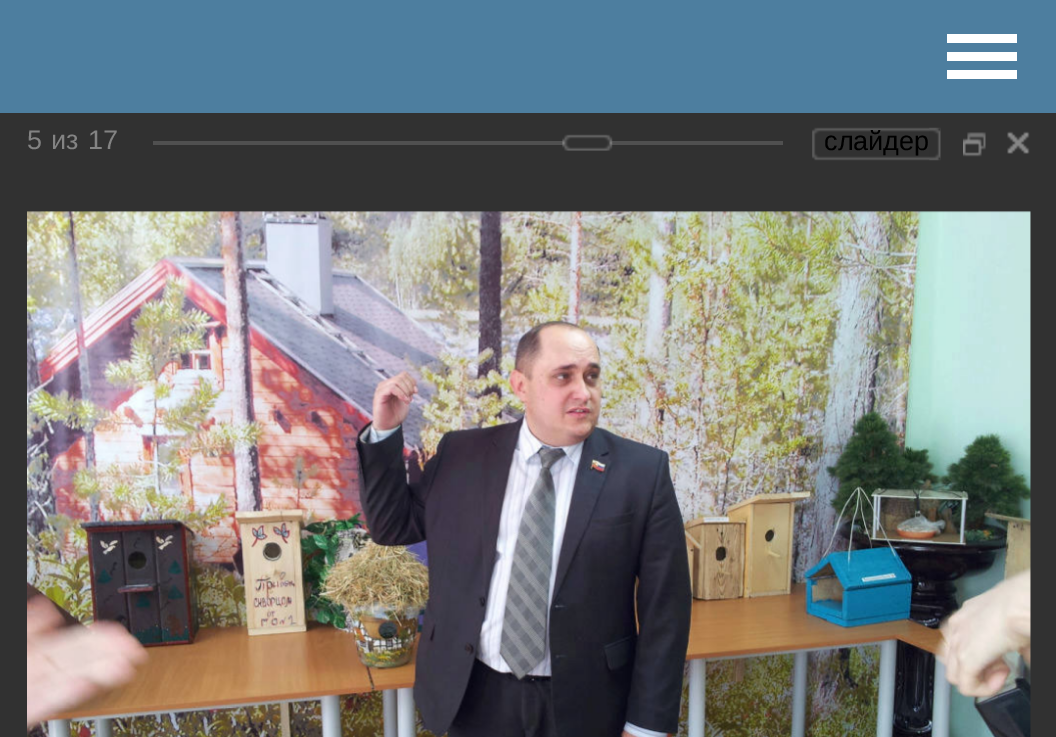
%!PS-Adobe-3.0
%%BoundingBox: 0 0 1056 737
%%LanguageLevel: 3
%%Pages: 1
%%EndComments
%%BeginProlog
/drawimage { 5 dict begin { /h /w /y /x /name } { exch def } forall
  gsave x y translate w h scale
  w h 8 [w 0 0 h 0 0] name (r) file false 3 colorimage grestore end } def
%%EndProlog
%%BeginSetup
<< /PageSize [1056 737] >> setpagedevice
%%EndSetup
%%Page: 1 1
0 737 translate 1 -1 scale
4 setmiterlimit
0.192 setgray
0 0 1056 737 rectfill
0.302 0.494 0.624 setrgbcolor
0 0 1056 113 rectfill
1 setgray
947 52 70 9 rectfill
947 34 70 9 rectfill
947 70 70 9 rectfill
0.314 setgray
153 141 630 4 rectfill
(images/1.raw) 562 134 51 17 drawimage
(images/2.raw) 812 127 129 34 drawimage
(images/3.raw) 929 127 12 34 drawimage
(images/4.raw) 963 132 23 25 drawimage
(images/5.raw) 1007 131 23 23 drawimage
(images/6.raw) 27 211 1004 526 drawimage
/LiberationSans-Regular [27 0 0 -27 0 0] selectfont
0.514 setgray
27 149 moveto (5) show
51 149 moveto (из) show
88 149 moveto (17) show
0 setgray
824 150 moveto (слайдер) show
showpage
%%EOF
